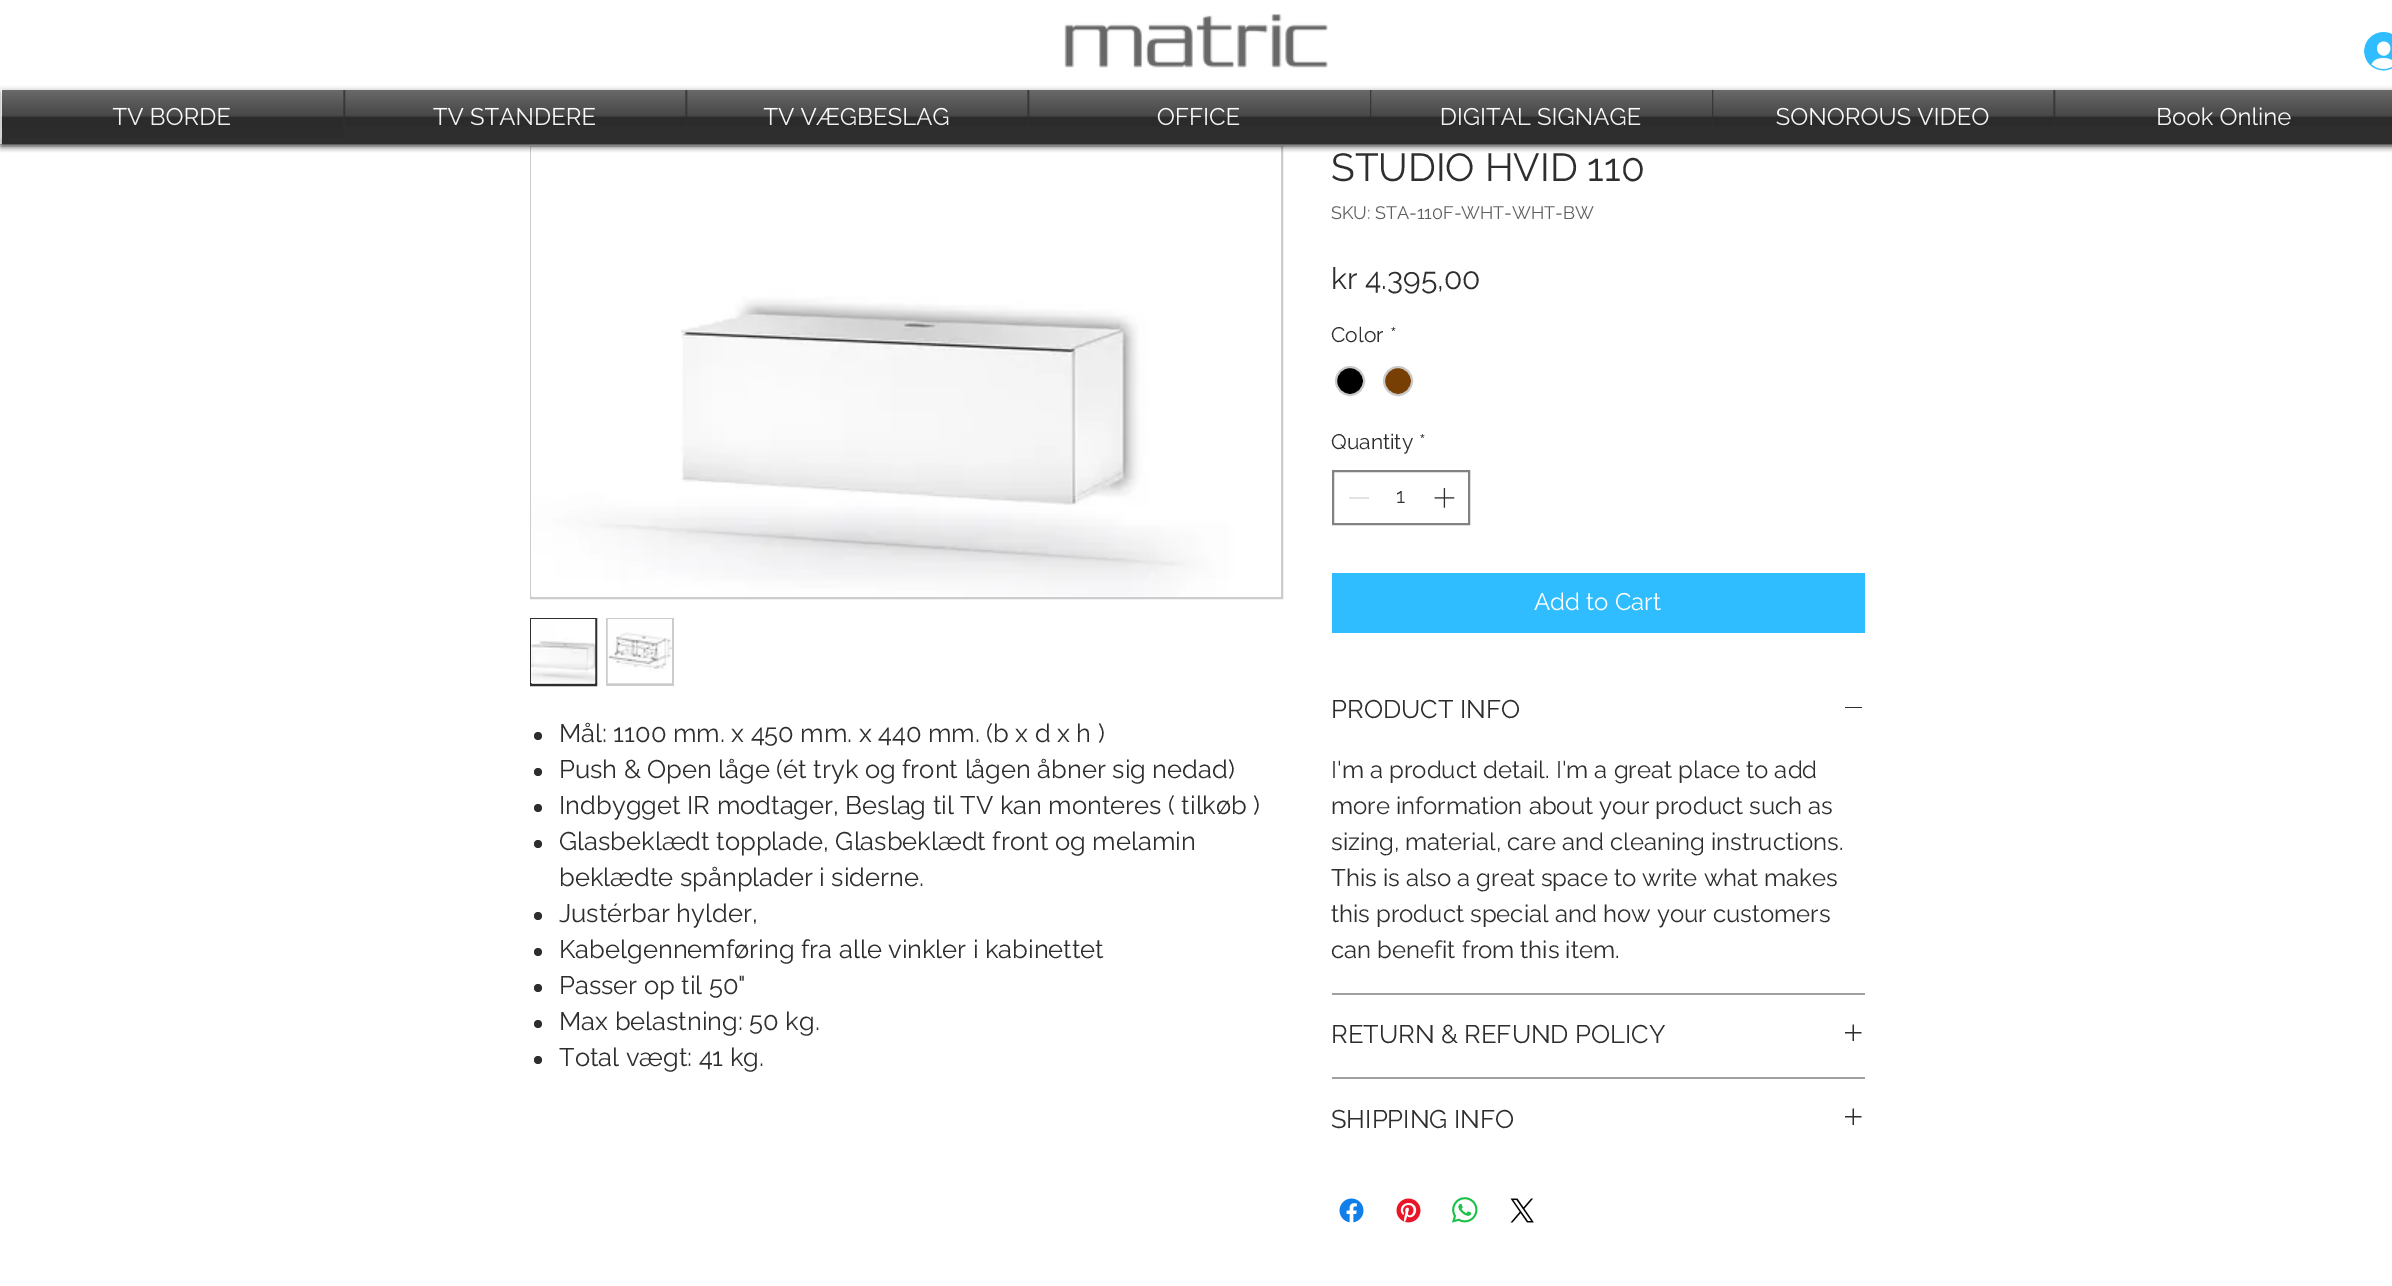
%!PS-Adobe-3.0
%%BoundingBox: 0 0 2392 1286
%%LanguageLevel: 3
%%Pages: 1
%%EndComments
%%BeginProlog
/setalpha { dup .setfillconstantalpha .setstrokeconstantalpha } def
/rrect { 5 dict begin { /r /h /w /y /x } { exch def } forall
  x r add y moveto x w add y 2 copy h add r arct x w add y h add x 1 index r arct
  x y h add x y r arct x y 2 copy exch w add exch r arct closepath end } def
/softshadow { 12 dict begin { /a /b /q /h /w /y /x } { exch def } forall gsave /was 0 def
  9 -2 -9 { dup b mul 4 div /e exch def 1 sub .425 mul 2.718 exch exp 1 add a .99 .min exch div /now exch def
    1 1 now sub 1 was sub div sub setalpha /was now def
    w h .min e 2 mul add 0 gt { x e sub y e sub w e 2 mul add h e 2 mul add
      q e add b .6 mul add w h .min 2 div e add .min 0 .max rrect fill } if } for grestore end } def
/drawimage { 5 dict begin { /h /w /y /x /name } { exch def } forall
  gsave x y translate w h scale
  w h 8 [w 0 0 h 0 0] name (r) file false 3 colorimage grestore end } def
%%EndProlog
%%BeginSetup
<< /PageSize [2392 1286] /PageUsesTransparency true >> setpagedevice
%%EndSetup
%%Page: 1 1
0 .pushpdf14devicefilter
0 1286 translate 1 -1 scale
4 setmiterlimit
1 setgray
0 0 2392 1286 rectfill
0.8 setgray
2 setlinewidth
531 147 751 451 rectstroke
(images/11.raw) 531 146 750 451 drawimage
gsave
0 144 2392 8 rectclip
0 setgray
0 0 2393 144 0 4 0.7 softshadow
grestore
(images/1.raw) 1064 14 264 54 drawimage
(images/2.raw) 2364 32 28 39 drawimage
0 setgray
2 92 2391 54 0 3 0.6 softshadow
(images/3.raw) 1 90 1 43 drawimage
0.184 0.18 0.18 setrgbcolor
2 90 2390 54 rectfill
0.8 setgray
532 683 63 1 rectfill
0.184 0.18 0.18 setrgbcolor
531 619 65 66 rectstroke
(images/12.raw) 531 619 65 65 drawimage
0.8 setgray
606 618 68 68 rectfill
(images/13.raw) 607 619 65 65 drawimage
0.184 0.18 0.18 setrgbcolor
newpath 538 736 4 0 360 arc closepath fill
newpath 538 772 4 0 360 arc closepath fill
newpath 538 808 4 0 360 arc closepath fill
newpath 538 844 4 0 360 arc closepath fill
newpath 538 916 4 0 360 arc closepath fill
newpath 538 952 4 0 360 arc closepath fill
newpath 538 988 4 0 360 arc closepath fill
newpath 538 1024 4 0 360 arc closepath fill
newpath 538 1060 4 0 360 arc closepath fill
0 setgray
newpath 1350 381 14 0 360 arc closepath gsave fill grestore
0.788 setgray
stroke
0.471 0.247 0.016 setrgbcolor
newpath 1398 381 14 0 360 arc closepath gsave fill grestore
0.788 setgray
stroke
0.51 setgray
1333 471 136 53 rectstroke
0.89 setgray
1349 497 20 2 rectfill
(images/14.raw) 1434 488 21 20 drawimage
0.188 0.741 1 setrgbcolor
1332 573 533 60 rectfill
0.627 0.627 0.624 setrgbcolor
1332 993 533 2 rectfill
0.184 0.18 0.18 setrgbcolor
1845 707 17 1 rectfill
0.627 0.627 0.624 setrgbcolor
1332 1077 533 2 rectfill
(images/15.raw) 1845 1024 17 17 drawimage
(images/15.raw) 1845 1108 17 17 drawimage
(images/16.raw) 1339 1198 25 25 drawimage
(images/17.raw) 1396 1198 25 25 drawimage
(images/18.raw) 1452 1197 26 26 drawimage
(images/19.raw) 1510 1198 24 25 drawimage
/Raleway-Regular [24 0 0 -24 0 0] selectfont
1 setgray
112 125 moveto (TV BORDE) show
(images/4.raw) 1 89 343 49 drawimage
433 125 moveto (TV STANDERE) show
(images/5.raw) 344 90 342 36 drawimage
763 125 moveto (TV VÆGBESLAG) show
(images/6.raw) 686 90 342 36 drawimage
1157 125 moveto (OFFICE) show
(images/7.raw) 1028 90 342 36 drawimage
1440 125 moveto (DIGITAL SIGNAGE) show
(images/8.raw) 1370 90 342 36 drawimage
1776 125 moveto (SONOROUS VIDEO) show
(images/9.raw) 1712 89 342 37 drawimage
2156 125 moveto (Book Online) show
(images/10.raw) 2054 90 338 36 drawimage
/Raleway-Regular [25.5 0 0 -25.5 0 0] selectfont
0.184 0.18 0.18 setrgbcolor
559 742 moveto (Mål: 1100 mm. x 450 mm. x 440 mm. \(b x d x h \)) show
559 778 moveto (Push & Open låge \(ét tryk og front lågen åbner sig nedad\)) show
559 814 moveto (Indbygget IR modtager, Beslag til TV kan monteres \( tilkøb \)) show
559 850 moveto (Glasbeklædt topplade, Glasbeklædt front og melamin) show
559 886 moveto (beklædte spånplader i siderne.) show
559 922 moveto (Justérbar hylder,) show
559 958 moveto (Kabelgennemføring fra alle vinkler i kabinettet) show
559 994 moveto (Passer op til 50") show
559 1030 moveto (Max belastning: 50 kg.) show
559 1066 moveto (Total vægt: 41 kg.) show
/Raleway-Regular [39 0 0 -39 0 0] selectfont
1331 181 moveto (STUDIO HVID 110) show
/Raleway-Regular [18 0 0 -18 0 0] selectfont
0.376 0.369 0.369 setrgbcolor
1331 219 moveto (SKU: STA-110F-WHT-WHT-BW) show
/Raleway-Regular [30 0 0 -30 0 0] selectfont
0.184 0.18 0.18 setrgbcolor
1331 289 moveto (kr 4.395,00) show
/Raleway-Regular [21 0 0 -21 0 0] selectfont
1331 342 moveto (Color) show
1390 342 moveto (*) show
1331 449 moveto (Quantity) show
1419 449 moveto (*) show
1396 503 moveto (1) show
/Raleway-Regular [24 0 0 -24 0 0] selectfont
1 setgray
1534 610 moveto (Add to Cart) show
/Raleway-Regular [25.5 0 0 -25.5 0 0] selectfont
0.184 0.18 0.18 setrgbcolor
1331 718 moveto (PRODUCT INFO) show
/Raleway-Regular [24 0 0 -24 0 0] selectfont
1331 778 moveto (I'm a product detail. I'm a great place to add) show
1331 814 moveto (more information about your product such as) show
1331 850 moveto (sizing, material, care and cleaning instructions.) show
1331 886 moveto (This is also a great space to write what makes) show
1331 922 moveto (this product special and how your customers) show
1331 958 moveto (can benefit from this item.) show
/Raleway-Regular [25.5 0 0 -25.5 0 0] selectfont
1331 1043 moveto (RETURN & REFUND POLICY) show
1331 1128 moveto (SHIPPING INFO) show
.poppdf14devicefilter showpage
%%EOF
